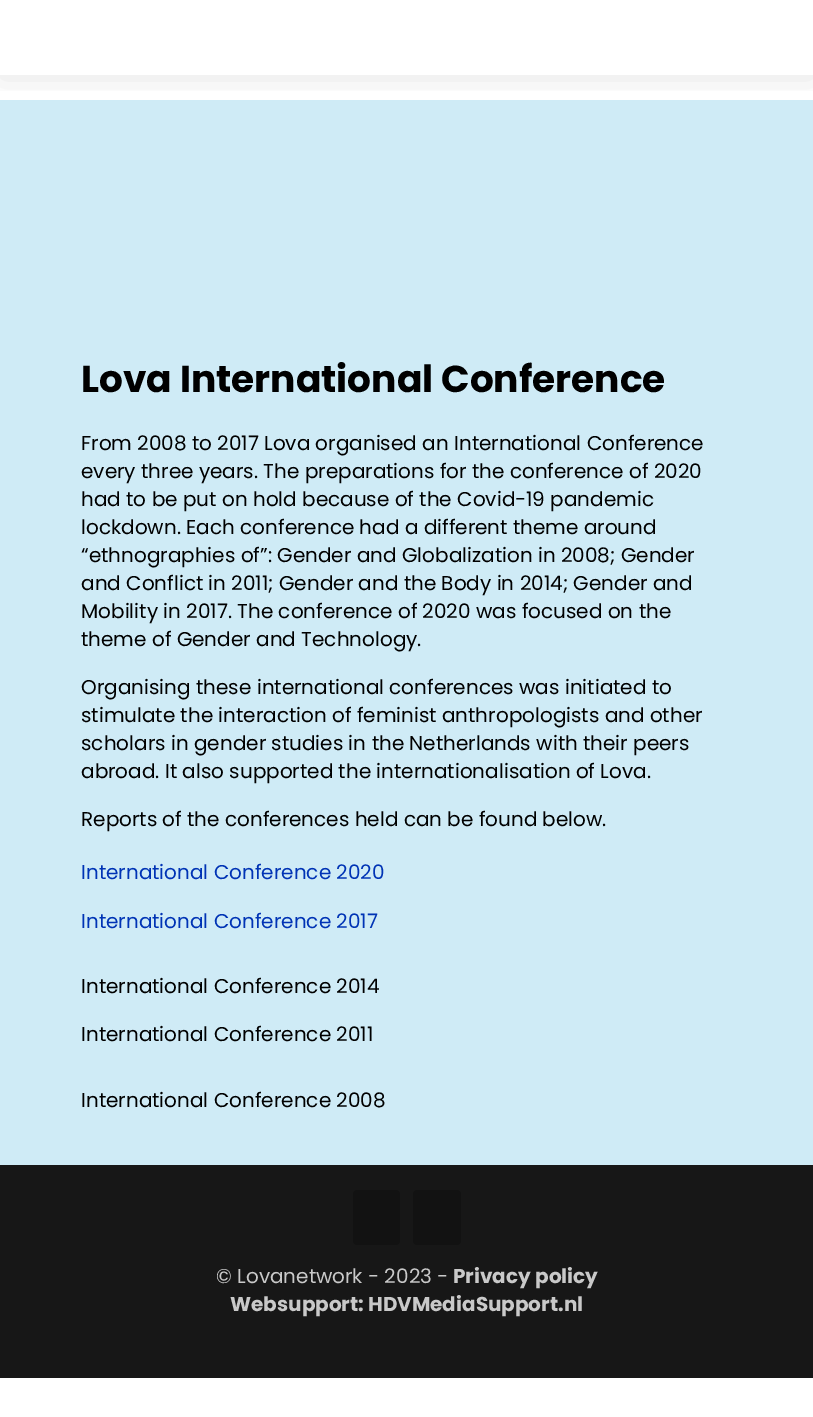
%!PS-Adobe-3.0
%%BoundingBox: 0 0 813 1417
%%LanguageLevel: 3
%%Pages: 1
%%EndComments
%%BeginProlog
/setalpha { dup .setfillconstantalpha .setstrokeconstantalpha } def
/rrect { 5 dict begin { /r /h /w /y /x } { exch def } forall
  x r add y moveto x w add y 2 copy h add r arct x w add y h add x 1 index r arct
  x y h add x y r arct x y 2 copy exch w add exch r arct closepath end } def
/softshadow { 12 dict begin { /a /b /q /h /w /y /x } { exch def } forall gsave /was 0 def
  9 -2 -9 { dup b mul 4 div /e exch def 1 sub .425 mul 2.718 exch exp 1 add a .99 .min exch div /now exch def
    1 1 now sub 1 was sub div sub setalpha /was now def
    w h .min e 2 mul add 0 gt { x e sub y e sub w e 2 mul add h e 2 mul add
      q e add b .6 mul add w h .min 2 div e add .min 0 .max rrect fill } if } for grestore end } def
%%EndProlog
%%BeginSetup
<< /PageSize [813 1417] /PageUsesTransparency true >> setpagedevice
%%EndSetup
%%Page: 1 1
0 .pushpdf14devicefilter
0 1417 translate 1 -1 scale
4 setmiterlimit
1 setgray
0 0 813 1417 rectfill
0.812 0.922 0.965 setrgbcolor
0 100 813 1065 rectfill
gsave
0 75 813 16 rectclip
0 setgray
0 3 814 75 0 15.5 0.1 softshadow
grestore
0.09 setgray
0 1165 813 213 rectfill
0.071 setgray
353 1190 47 55 4 rrect fill
413 1190 48 55 4 rrect fill
/Poppins-Bold [37.5 0 0 -37.5 0 0] selectfont
0 setgray
81 392 moveto (Lova International Conference) show
/Poppins-Regular [20 0 0 -20 0 0] selectfont
81 450 moveto (From 2008 to 2017 Lova organised an International Conference) show
81 478 moveto (every three years. The preparations for the conference of 2020) show
81 506 moveto (had to be put on hold because of the Covid-19 pandemic) show
81 534 moveto (lockdown. Each conference had a different theme around) show
81 562 moveto (“ethnographies of”: Gender and Globalization in 2008; Gender) show
81 590 moveto (and Conflict in 2011; Gender and the Body in 2014; Gender and) show
81 618 moveto (Mobility in 2017. The conference of 2020 was focused on the) show
81 646 moveto (theme of Gender and Technology.) show
81 694 moveto (Organising these international conferences was initiated to) show
81 722 moveto (stimulate the interaction of feminist anthropologists and other) show
81 750 moveto (scholars in gender studies in the Netherlands with their peers) show
81 778 moveto (abroad. It also supported the internationalisation of Lova.) show
81 826 moveto (Reports of the conferences held can be found below.) show
0 0.2 0.71 setrgbcolor
81 879 moveto (International Conference 2020) show
81 928 moveto (International Conference 2017) show
0 setgray
81 993 moveto (International Conference 2014) show
81 1041 moveto (International Conference 2011) show
81 1107 moveto (International Conference 2008) show
0.788 setgray
216 1283 moveto (© Lovanetwork - 2023 -) show
/Poppins-Bold [20 0 0 -20 0 0] selectfont
453 1283 moveto (Privacy policy) show
230 1311 moveto (Websupport: HDVMediaSupport.nl) show
.poppdf14devicefilter showpage
%%EOF
